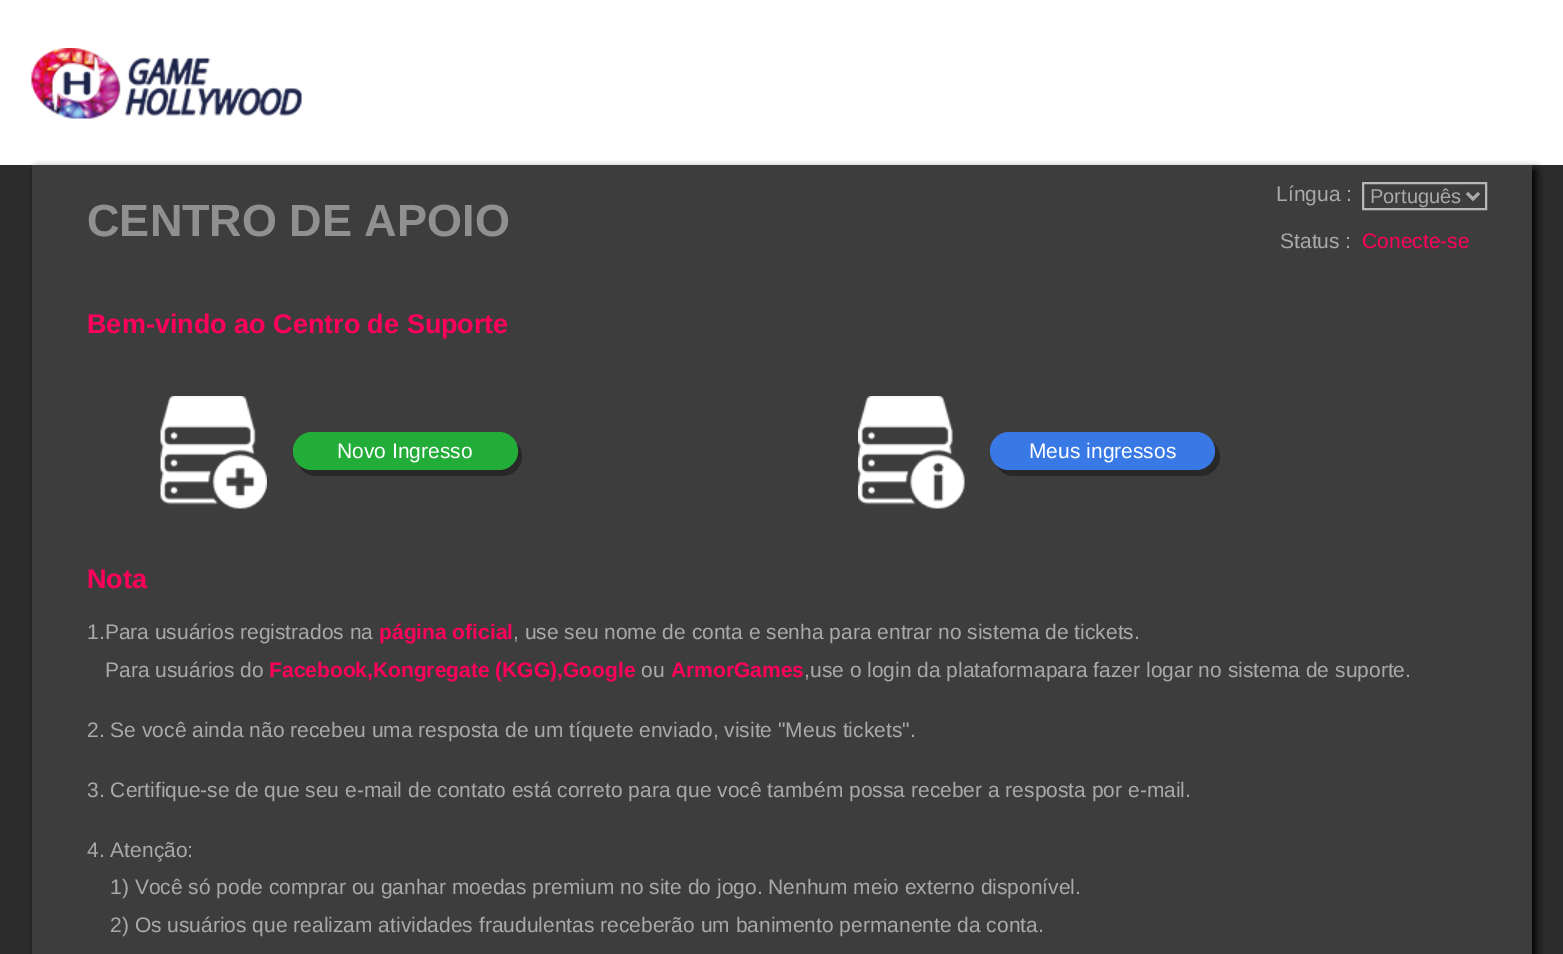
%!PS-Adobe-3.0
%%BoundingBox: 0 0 1563 954
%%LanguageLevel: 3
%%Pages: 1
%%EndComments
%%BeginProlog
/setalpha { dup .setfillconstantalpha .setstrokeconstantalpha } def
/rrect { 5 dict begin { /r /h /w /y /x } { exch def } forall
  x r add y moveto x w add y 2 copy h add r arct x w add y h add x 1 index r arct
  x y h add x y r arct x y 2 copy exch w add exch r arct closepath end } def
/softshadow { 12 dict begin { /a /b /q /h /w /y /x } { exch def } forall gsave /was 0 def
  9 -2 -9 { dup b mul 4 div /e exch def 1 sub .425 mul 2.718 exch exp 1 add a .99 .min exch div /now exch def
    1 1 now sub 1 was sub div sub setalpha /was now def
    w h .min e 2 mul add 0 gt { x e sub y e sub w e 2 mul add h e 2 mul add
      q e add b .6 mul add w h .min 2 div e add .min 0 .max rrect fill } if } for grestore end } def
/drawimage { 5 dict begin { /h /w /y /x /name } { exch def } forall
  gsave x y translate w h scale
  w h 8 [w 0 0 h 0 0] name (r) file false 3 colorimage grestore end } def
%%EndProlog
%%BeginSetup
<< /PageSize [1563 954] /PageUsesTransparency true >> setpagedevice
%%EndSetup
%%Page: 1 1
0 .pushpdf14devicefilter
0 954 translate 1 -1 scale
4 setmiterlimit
0.176 0.173 0.173 setrgbcolor
0 0 1563 954 rectfill
1 setgray
0 0 1563 165 rectfill
(images/1.raw) 31 48 271 71 drawimage
0 setgray
36 170 1500 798 0 4.5 1 softshadow
0.239 setgray
32 165 1500 789 rectfill
0.718 setgray
2 setlinewidth
1363 183 123 26 rectstroke
0.667 0.663 0.663 setrgbcolor
3 setlinewidth
newpath 1467 193 moveto 1473 199 lineto 1479 193 lineto stroke
(images/2.raw) 160 396 107 113 drawimage
0.157 setgray
newpath 299 465 moveto 301 471 308 476 316 476 curveto 503 476 lineto 513 476 522 467 522 457 curveto 522 451 520 446 516 443 curveto 517 445 518 448 518 451 curveto 518 461 509 470 499 470 curveto 311 470 lineto 306 470 302 468 299 465 curveto closepath fill
0.133 0.675 0.22 setrgbcolor
293 432 225 38 19 rrect fill
(images/3.raw) 858 396 107 113 drawimage
0.157 setgray
newpath 997 465 moveto 1000 472 1006 476 1014 476 curveto 1201 476 lineto 1211 476 1220 467 1220 457 curveto 1220 451 1217 446 1213 442 curveto 1214 445 1215 448 1215 451 curveto 1215 461 1207 470 1196 470 curveto 1009 470 lineto 1004 470 1000 468 997 465 curveto closepath fill
0.22 0.475 0.902 setrgbcolor
990 432 225 38 19 rrect fill
/LiberationSans-Bold [45 0 0 -45 0 0] selectfont
0.565 setgray
87 236 moveto (CENTRO DE APOIO) show
/LiberationSans-Regular [21 0 0 -21 0 0] selectfont
0.667 0.663 0.663 setrgbcolor
1276 201 moveto (Língua :) show
/LiberationSans-Regular [20 0 0 -20 0 0] selectfont
1370 203 moveto (Português) show
/LiberationSans-Regular [21 0 0 -21 0 0] selectfont
1280 248 moveto (Status :) show
1 0 0.357 setrgbcolor
1362 248 moveto (Conecte-se) show
/LiberationSans-Bold [27 0 0 -27 0 0] selectfont
87 333 moveto (Bem-vindo ao Centro de Suporte) show
/LiberationSans-Regular [21 0 0 -21 0 0] selectfont
1 setgray
337 458 moveto (Novo Ingresso) show
1029 458 moveto (Meus ingressos) show
/LiberationSans-Bold [27 0 0 -27 0 0] selectfont
1 0 0.357 setrgbcolor
87 588 moveto (Nota) show
/LiberationSans-Regular [21 0 0 -21 0 0] selectfont
0.667 0.663 0.663 setrgbcolor
87 639 moveto (1.Para usuários registrados na) show
/LiberationSans-Bold [21 0 0 -21 0 0] selectfont
1 0 0.357 setrgbcolor
379 639 moveto (página oficial) show
/LiberationSans-Regular [21 0 0 -21 0 0] selectfont
0.667 0.663 0.663 setrgbcolor
513 639 moveto (, use seu nome de conta e senha para entrar no sistema de tickets.) show
105 677 moveto (Para usuários do) show
/LiberationSans-Bold [21 0 0 -21 0 0] selectfont
1 0 0.357 setrgbcolor
269 677 moveto (Facebook,Kongregate \(KGG\),Google) show
/LiberationSans-Regular [21 0 0 -21 0 0] selectfont
0.667 0.663 0.663 setrgbcolor
641 677 moveto (ou) show
/LiberationSans-Bold [21 0 0 -21 0 0] selectfont
1 0 0.357 setrgbcolor
671 677 moveto (ArmorGames) show
/LiberationSans-Regular [21 0 0 -21 0 0] selectfont
0.667 0.663 0.663 setrgbcolor
804 677 moveto (,use o login da plataformapara fazer logar no sistema de suporte.) show
87 737 moveto (2. Se você ainda não recebeu uma resposta de um tíquete enviado, visite "Meus tickets".) show
87 797 moveto (3. Certifique-se de que seu e-mail de contato está correto para que você também possa receber a resposta por e-mail.) show
87 857 moveto (4. Atenção:) show
110 894 moveto (1\) Você só pode comprar ou ganhar moedas premium no site do jogo. Nenhum meio externo disponível.) show
110 932 moveto (2\) Os usuários que realizam atividades fraudulentas receberão um banimento permanente da conta.) show
.poppdf14devicefilter showpage
%%EOF
